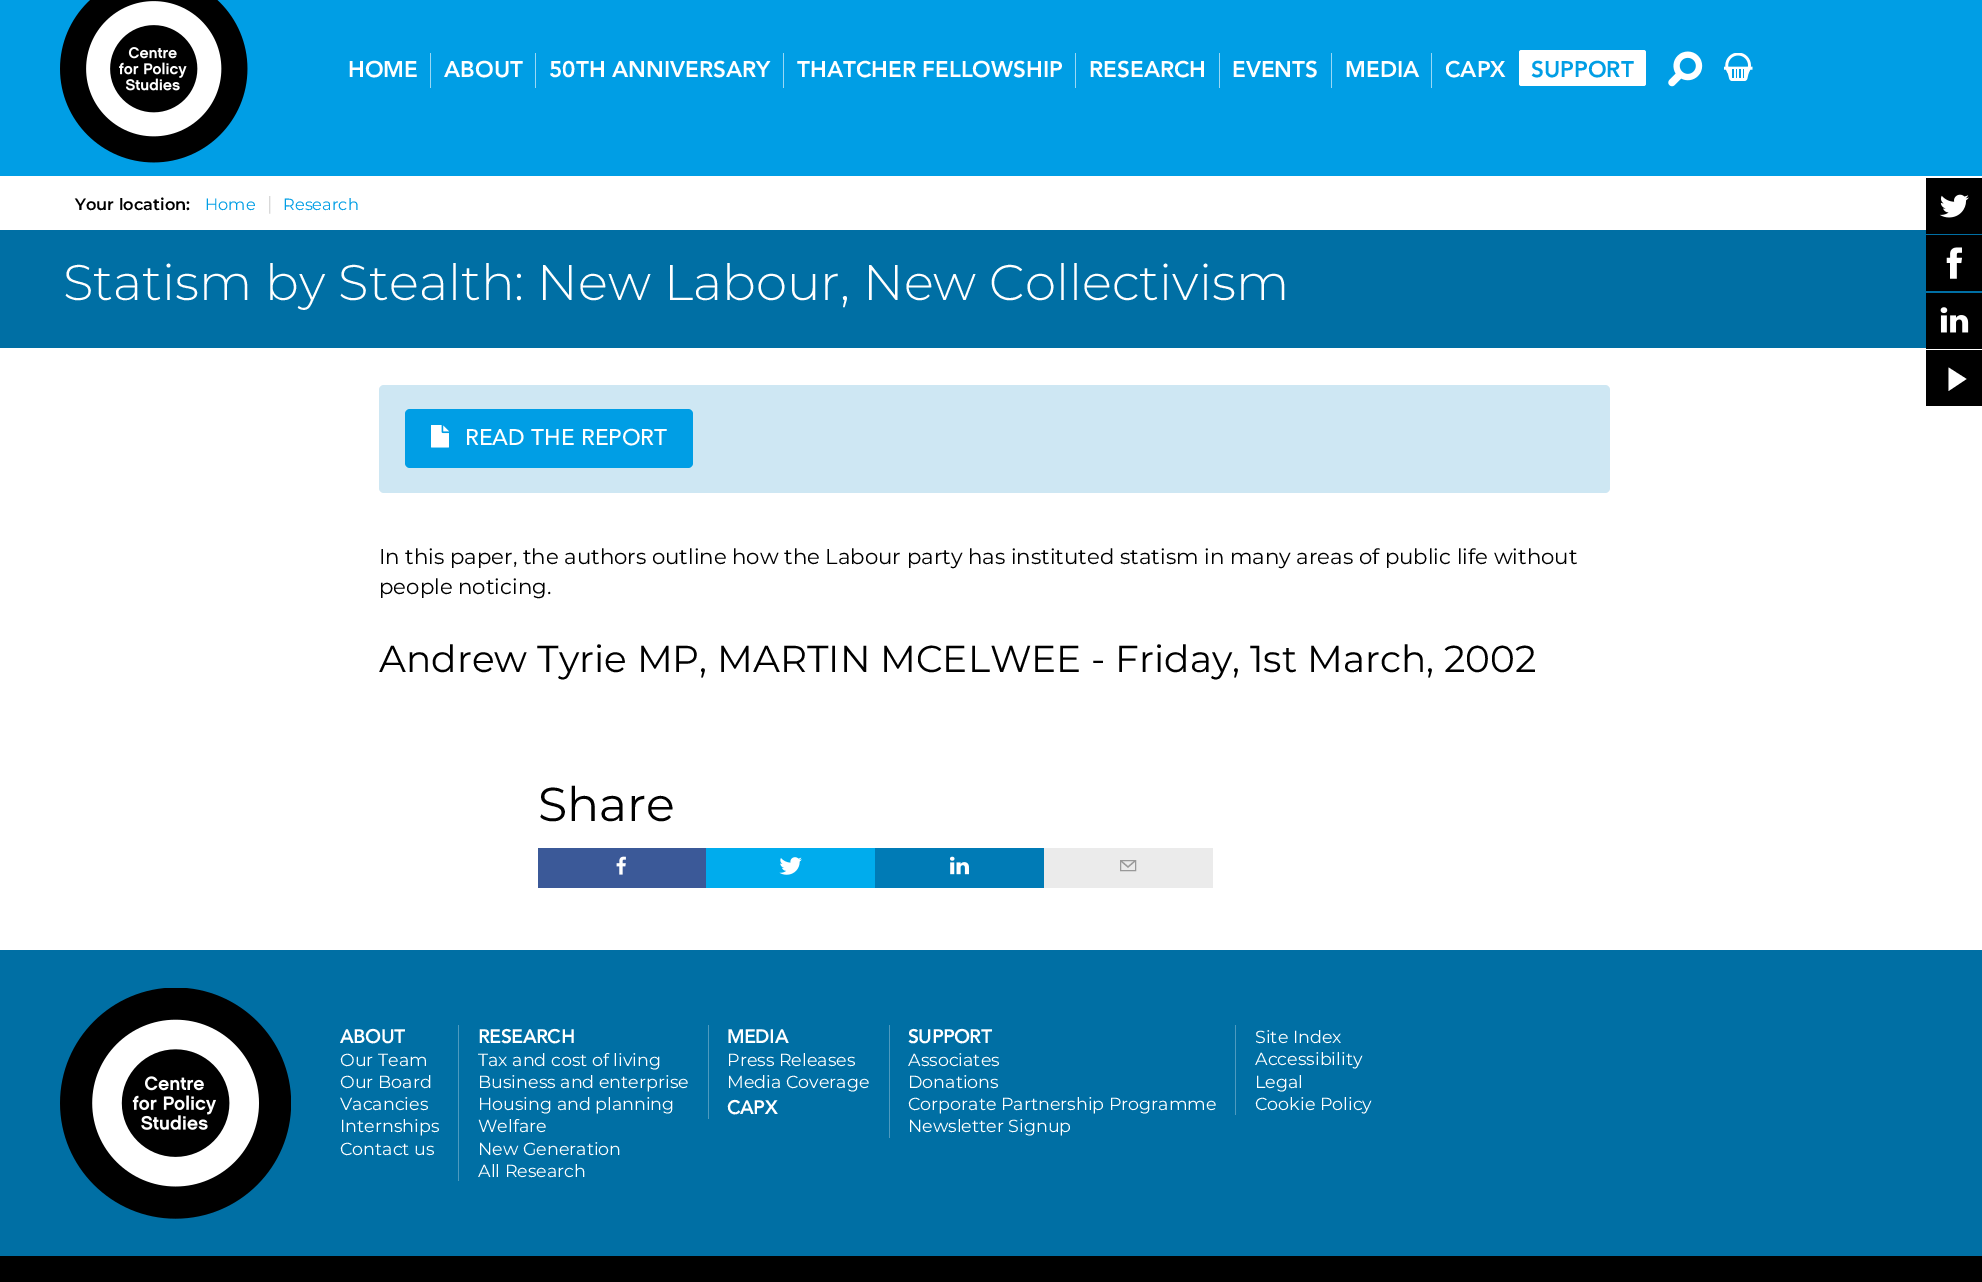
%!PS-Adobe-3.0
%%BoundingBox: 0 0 1982 1282
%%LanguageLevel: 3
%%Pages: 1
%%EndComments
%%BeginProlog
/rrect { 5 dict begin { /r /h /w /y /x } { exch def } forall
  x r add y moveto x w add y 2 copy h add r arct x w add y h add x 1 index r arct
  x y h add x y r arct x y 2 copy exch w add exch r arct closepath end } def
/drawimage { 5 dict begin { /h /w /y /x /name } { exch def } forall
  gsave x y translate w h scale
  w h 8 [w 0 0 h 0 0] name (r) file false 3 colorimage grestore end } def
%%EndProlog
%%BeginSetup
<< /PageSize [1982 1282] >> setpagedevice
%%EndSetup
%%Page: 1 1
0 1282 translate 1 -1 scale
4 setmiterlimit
1 setgray
0 0 1982 1282 rectfill
0 0.62 0.898 setrgbcolor
0 0 1982 176 rectfill
(images/1.raw) 60 0 188 163 drawimage
0.6 0.847 0.961 setrgbcolor
430 53 1 35 rectfill
535 53 1 35 rectfill
783 53 1 35 rectfill
1075 53 1 35 rectfill
1219 53 1 35 rectfill
1331 53 1 35 rectfill
1431 53 1 35 rectfill
1 setgray
1519 50 127 36 2.5 rrect fill
(images/2.raw) 1668 51 35 36 drawimage
(images/3.raw) 1724 53 29 28 drawimage
0 0.435 0.643 setrgbcolor
0 230 1982 118 rectfill
0 setgray
1926 178 56 56 rectfill
(images/4.raw) 1939 194 30 24 drawimage
1926 235 56 56 rectfill
(images/5.raw) 1946 247 16 32 drawimage
1926 293 56 56 rectfill
(images/6.raw) 1940 307 29 26 drawimage
1926 350 56 56 rectfill
1 setgray
newpath 1948.5 391 moveto 1948.5 367.5 lineto 1966.5 379 lineto closepath fill
0.808 0.906 0.953 setrgbcolor
379 385 1231 108 5 rrect fill
0 0.62 0.898 setrgbcolor
405 409 288 59 5 rrect fill
(images/7.raw) 431 425 18 23 drawimage
0.231 0.349 0.596 setrgbcolor
538 848 168 40 rectfill
(images/8.raw) 616 856 10 19 drawimage
0 0.675 0.929 setrgbcolor
706 848 169 40 rectfill
(images/9.raw) 779 857 23 18 drawimage
0 0.482 0.714 setrgbcolor
875 848 169 40 rectfill
(images/10.raw) 950 856 19 19 drawimage
0.922 setgray
1044 848 169 40 rectfill
0.6 setgray
1120.5 860.5 15 10 rectstroke
1.2 setlinewidth
newpath 1135.5 860.5 moveto 1128 867 lineto 1120.5 860.5 lineto stroke
0 0.435 0.643 setrgbcolor
0 950 1982 306 rectfill
(images/11.raw) 60 988 231 231 drawimage
0.302 0.604 0.749 setrgbcolor
458 1025 1 156 rectfill
708 1025 1 94 rectfill
889 1025 1 113 rectfill
1235 1025 1 90 rectfill
0 setgray
0 1256 1982 26 rectfill
/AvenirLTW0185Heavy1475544-Black [22.5 0 0 -22.5 0 0] selectfont
1 setgray
348 77 moveto (HOME) show
444 77 moveto (ABOUT) show
549 77 moveto (50TH ANNIVERSARY) show
797 77 moveto (THATCHER FELLOWSHIP) show
1089 77 moveto (RESEARCH) show
1232 77 moveto (EVENTS) show
1345 77 moveto (MEDIA) show
1445 77 moveto (CAPX) show
0 0.62 0.898 setrgbcolor
1531 77 moveto (SUPPORT) show
/Montserrat-SemiBold [16.25 0 0 -16.25 0 0] selectfont
0 setgray
75 210 moveto (Your location:) show
/Montserrat-Regular [16.25 0 0 -16.25 0 0] selectfont
0 0.62 0.898 setrgbcolor
205 210 moveto (Home) show
/Montserrat-Regular [18.75 0 0 -18.75 0 0] selectfont
0.8 setgray
267 210 moveto (|) show
/Montserrat-Regular [16.25 0 0 -16.25 0 0] selectfont
0 0.62 0.898 setrgbcolor
283 210 moveto (Research) show
/Montserrat-Light [50 0 0 -50 0 0] selectfont
1 setgray
63 300 moveto (Statism by Stealth: New Labour, New Collectivism) show
/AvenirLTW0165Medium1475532-Medium [22.5 0 0 -22.5 0 0] selectfont
465 445 moveto (READ THE REPORT) show
/Montserrat-Regular [21.25 0 0 -21.25 0 0] selectfont
0 setgray
379 564 moveto (In this paper, the authors outline how the Labour party has instituted statism in many areas of public life without) show
379 594 moveto (people noticing.) show
/Montserrat-Regular [37.5 0 0 -37.5 0 0] selectfont
379 672 moveto (Andrew Tyrie MP, MARTIN MCELWEE - Friday, 1st March, 2002) show
/Montserrat-Regular [47.5 0 0 -47.5 0 0] selectfont
538 821 moveto (Share) show
/AvenirLTW0165Medium1475532-Bold [18.75 0 0 -18.75 0 0] selectfont
1 setgray
340 1043 moveto (ABOUT) show
/Montserrat-Regular [17.5 0 0 -17.5 0 0] selectfont
340 1066 moveto (Our Team) show
340 1088 moveto (Our Board) show
340 1110 moveto (Vacancies) show
340 1132 moveto (Internships) show
340 1155 moveto (Contact us) show
/AvenirLTW0165Medium1475532-Bold [18.75 0 0 -18.75 0 0] selectfont
478 1043 moveto (RESEARCH) show
/Montserrat-Regular [17.5 0 0 -17.5 0 0] selectfont
478 1066 moveto (Tax and cost of living) show
478 1088 moveto (Business and enterprise) show
478 1110 moveto (Housing and planning) show
478 1132 moveto (Welfare) show
478 1155 moveto (New Generation) show
478 1177 moveto (All Research) show
/AvenirLTW0165Medium1475532-Bold [18.75 0 0 -18.75 0 0] selectfont
727 1043 moveto (MEDIA) show
/Montserrat-Regular [17.5 0 0 -17.5 0 0] selectfont
727 1066 moveto (Press Releases) show
727 1088 moveto (Media Coverage) show
/AvenirLTW0165Medium1475532-Bold [18.75 0 0 -18.75 0 0] selectfont
727 1114 moveto (CAPX) show
908 1043 moveto (SUPPORT) show
/Montserrat-Regular [17.5 0 0 -17.5 0 0] selectfont
908 1066 moveto (Associates) show
908 1088 moveto (Donations) show
908 1110 moveto (Corporate Partnership Programme) show
908 1132 moveto (Newsletter Signup) show
1255 1043 moveto (Site Index) show
1255 1065 moveto (Accessibility) show
1255 1088 moveto (Legal) show
1255 1110 moveto (Cookie Policy) show
showpage
%%EOF
